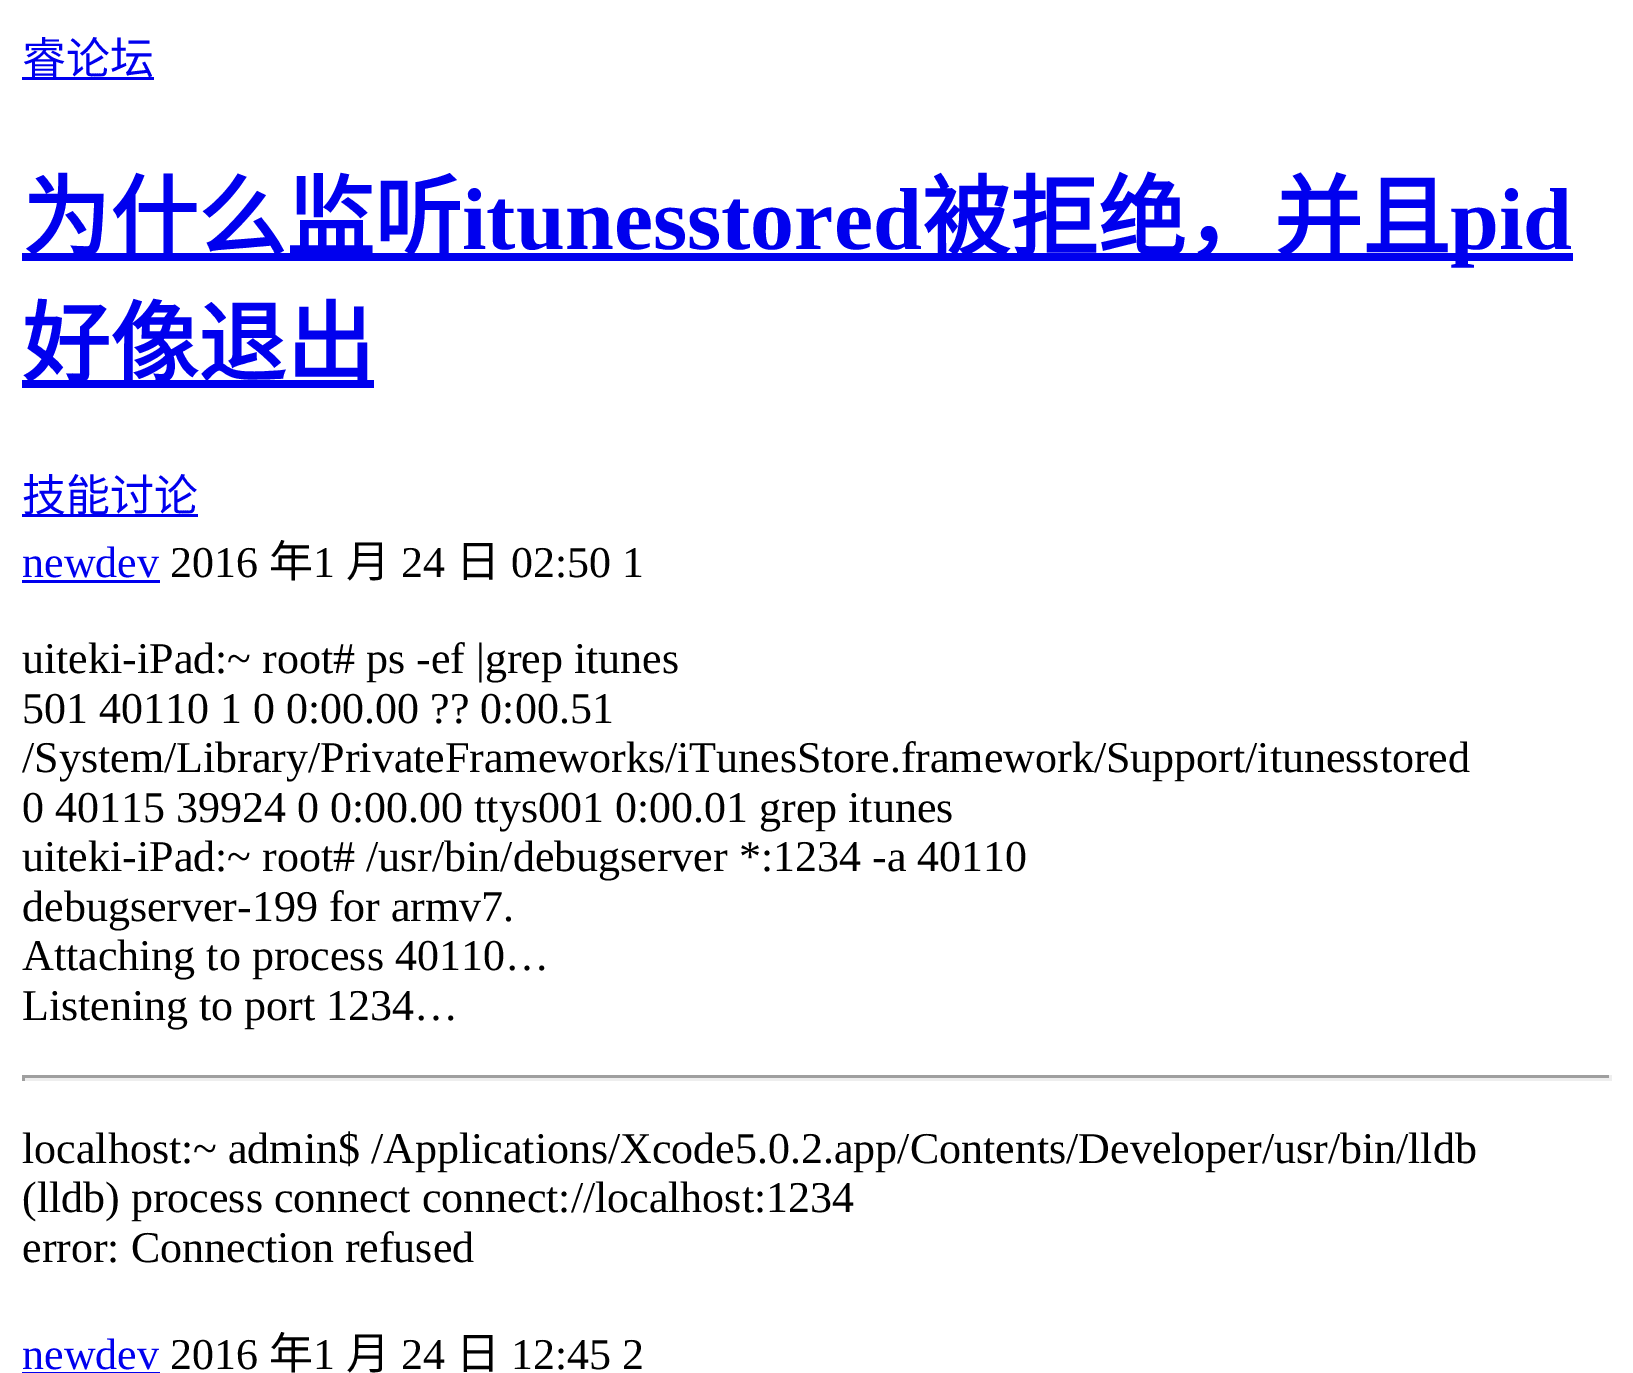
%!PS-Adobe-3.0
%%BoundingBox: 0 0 1633 1373
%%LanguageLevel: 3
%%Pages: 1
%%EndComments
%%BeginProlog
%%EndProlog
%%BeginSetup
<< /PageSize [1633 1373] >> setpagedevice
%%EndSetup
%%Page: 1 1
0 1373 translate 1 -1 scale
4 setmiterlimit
1 setgray
0 0 1633 1373 rectfill
0 0 0.933 setrgbcolor
22 77 132 3 rectfill
22 253 1551 8 rectfill
22 380 352 8 rectfill
22 514 176 3 rectfill
22 580 138 3 rectfill
0.624 setgray
22 1075 1590 3 rectfill
0.933 setgray
1609 1075 3 6 rectfill
22 1078 1590 3 rectfill
0.624 setgray
22 1075 3 6 rectfill
0 0 0.933 setrgbcolor
22 1372 138 1 rectfill
/NotoSansCJKSC-Regular [44 0 0 -44 0 0] selectfont
22 74 moveto (睿论坛) show
/NotoSansCJKSC-Bold [88 0 0 -88 0 0] selectfont
22 249 moveto (为什么监听) show
/LiberationSerif-Bold [88 0 0 -88 0 0] selectfont
462 249 moveto (itunesstored) show
/NotoSansCJKSC-Bold [88 0 0 -88 0 0] selectfont
922 249 moveto (被拒绝，并且) show
/LiberationSerif-Bold [88 0 0 -88 0 0] selectfont
1450 249 moveto (pid) show
/NotoSansCJKSC-Bold [88 0 0 -88 0 0] selectfont
22 375 moveto (好像退出) show
/NotoSansCJKSC-Regular [44 0 0 -44 0 0] selectfont
22 511 moveto (技能讨论) show
/LiberationSerif-Regular [44 0 0 -44 0 0] selectfont
22 577 moveto (newdev) show
0 setgray
170 577 moveto (2016) show
/NotoSansCJKSC-Regular [44 0 0 -44 0 0] selectfont
269 577 moveto (年) show
/LiberationSerif-Regular [44 0 0 -44 0 0] selectfont
313 577 moveto (1) show
/NotoSansCJKSC-Regular [44 0 0 -44 0 0] selectfont
346 577 moveto (月) show
/LiberationSerif-Regular [44 0 0 -44 0 0] selectfont
401 577 moveto (24) show
/NotoSansCJKSC-Regular [44 0 0 -44 0 0] selectfont
456 577 moveto (日) show
/LiberationSerif-Regular [44 0 0 -44 0 0] selectfont
511 577 moveto (02:50 1) show
22 673 moveto (uiteki-iPad:~ root# ps -ef |grep itunes) show
22 723 moveto (501 40110 1 0 0:00.00 ?? 0:00.51) show
22 772 moveto (/System/Library/PrivateFrameworks/iTunesStore.framework/Support/itunesstored) show
22 822 moveto (0 40115 39924 0 0:00.00 ttys001 0:00.01 grep itunes) show
22 871 moveto (uiteki-iPad:~ root# /usr/bin/debugserver *:1234 -a 40110) show
22 921 moveto (debugserver-199 for armv7.) show
22 970 moveto (Attaching to process 40110…) show
22 1020 moveto (Listening to port 1234…) show
22 1163 moveto (localhost:~ admin$ /Applications/Xcode5.0.2.app/Contents/Developer/usr/bin/lldb) show
22 1212 moveto (\(lldb\) process connect connect://localhost:1234) show
22 1262 moveto (error: Connection refused) show
0 0 0.933 setrgbcolor
22 1369 moveto (newdev) show
0 setgray
170 1369 moveto (2016) show
/NotoSansCJKSC-Regular [44 0 0 -44 0 0] selectfont
269 1369 moveto (年) show
/LiberationSerif-Regular [44 0 0 -44 0 0] selectfont
313 1369 moveto (1) show
/NotoSansCJKSC-Regular [44 0 0 -44 0 0] selectfont
346 1369 moveto (月) show
/LiberationSerif-Regular [44 0 0 -44 0 0] selectfont
401 1369 moveto (24) show
/NotoSansCJKSC-Regular [44 0 0 -44 0 0] selectfont
456 1369 moveto (日) show
/LiberationSerif-Regular [44 0 0 -44 0 0] selectfont
511 1369 moveto (12:45 2) show
showpage
%%EOF
